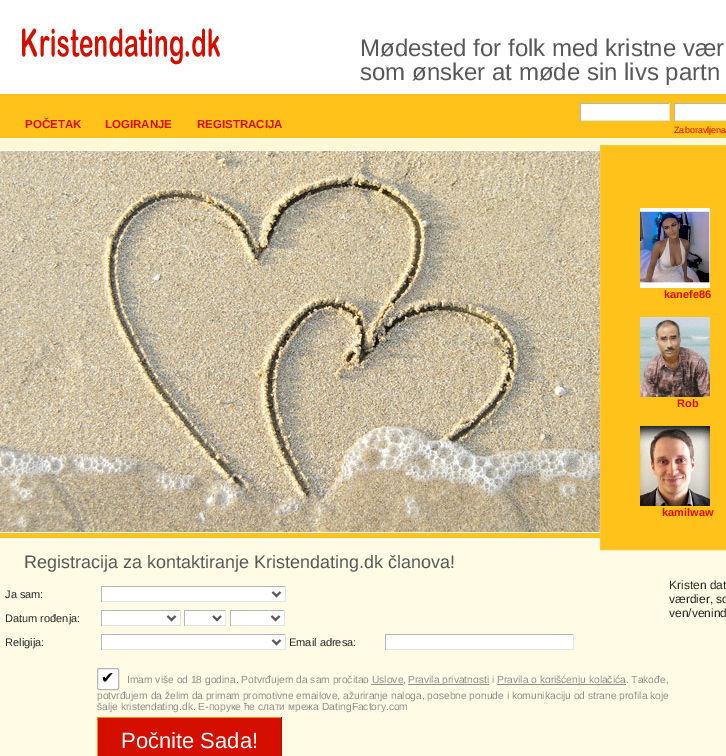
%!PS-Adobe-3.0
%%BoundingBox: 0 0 726 756
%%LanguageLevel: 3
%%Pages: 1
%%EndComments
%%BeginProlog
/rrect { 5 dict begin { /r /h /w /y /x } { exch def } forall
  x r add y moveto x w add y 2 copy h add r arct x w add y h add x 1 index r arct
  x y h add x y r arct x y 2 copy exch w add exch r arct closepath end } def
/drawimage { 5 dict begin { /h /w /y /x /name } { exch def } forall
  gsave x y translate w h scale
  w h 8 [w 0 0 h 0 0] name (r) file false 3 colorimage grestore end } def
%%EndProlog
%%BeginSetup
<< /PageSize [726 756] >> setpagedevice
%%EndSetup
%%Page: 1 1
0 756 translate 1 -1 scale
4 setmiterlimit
1 setgray
0 0 726 756 rectfill
(images/1.raw) 22 28 198 37 drawimage
1 0.761 0.102 setrgbcolor
0 94 726 44 rectfill
1 setgray
581 104 88 16 rectfill
0.714 setgray
580 103 90 1 rectfill
0.898 setgray
669 103 1 18 rectfill
580 120 90 1 rectfill
0.714 setgray
580 103 1 18 rectfill
1 setgray
675 104 51 16 rectfill
0.714 setgray
674 103 52 1 rectfill
0.898 setgray
674 120 52 1 rectfill
0.714 setgray
674 103 1 18 rectfill
0.992 0.973 0.847 setrgbcolor
0 138 726 12 rectfill
1 0.984 0.894 setrgbcolor
0 538 726 218 rectfill
1 0.761 0.102 setrgbcolor
newpath 600.5 145.5 moveto 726.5 145.5 lineto 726.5 549.5 lineto 600.5 549.5 lineto closepath gsave fill grestore
1 0.788 0.212 setrgbcolor
stroke
(images/2.raw) 640 208 70 80 drawimage
(images/3.raw) 640 317 70 80 drawimage
(images/4.raw) 640 426 70 80 drawimage
(images/5.raw) 0 151 600 382 drawimage
1 0.761 0.102 setrgbcolor
0 533 600 5 rectfill
1 setgray
102 587 183 14 rectfill
0.714 setgray
101 586 185 1 rectfill
0.898 setgray
285 586 1 16 rectfill
101 601 185 1 rectfill
0.714 setgray
101 586 1 16 rectfill
0.345 setgray
2 setlinewidth
newpath 272.5 592 moveto 276.5 596 lineto 280.5 592 lineto stroke
1 setgray
102 611 78 14 rectfill
0.714 setgray
101 610 80 1 rectfill
0.898 setgray
180 610 1 16 rectfill
101 625 80 1 rectfill
0.714 setgray
101 610 1 16 rectfill
0.345 setgray
newpath 167.5 616 moveto 171.5 620 lineto 175.5 616 lineto stroke
1 setgray
185 611 40 14 rectfill
0.714 setgray
184 610 42 1 rectfill
0.898 setgray
225 610 1 16 rectfill
184 625 42 1 rectfill
0.714 setgray
184 610 1 16 rectfill
0.345 setgray
newpath 213 616 moveto 217 620 lineto 221 616 lineto stroke
1 setgray
231 611 53 14 rectfill
0.714 setgray
230 610 55 1 rectfill
0.898 setgray
284 610 1 16 rectfill
230 625 55 1 rectfill
0.714 setgray
230 610 1 16 rectfill
0.345 setgray
newpath 271.5 616 moveto 275.5 620 lineto 279.5 616 lineto stroke
1 setgray
102 635 183 14 rectfill
0.714 setgray
101 634 185 1 rectfill
0.898 setgray
285 634 1 16 rectfill
101 649 185 1 rectfill
0.714 setgray
101 634 1 16 rectfill
0.345 setgray
newpath 272.5 640 moveto 276.5 644 lineto 280.5 640 lineto stroke
1 setgray
386 635 187 14 rectfill
0.714 setgray
385 634 189 1 rectfill
0.898 setgray
573 634 1 16 rectfill
385 649 189 1 rectfill
0.714 setgray
385 634 1 16 rectfill
1 setgray
97.5 668.5 21 21 1.5 rrect gsave fill grestore
0.714 setgray
1 setlinewidth
stroke
0.565 0.561 0.561 setrgbcolor
408 684 81 1 rectfill
497 684 129 1 rectfill
371 684 32 1 rectfill
0.835 0.059 0 setrgbcolor
98 718 183 38 rectfill
1 0.569 0 setrgbcolor
97 717 185 1 rectfill
0.667 0.047 0 setrgbcolor
281 717 1 39 rectfill
1 0.569 0 setrgbcolor
97 717 1 39 rectfill
/LiberationSans-Regular [24 0 0 -24 0 0] selectfont
0.345 setgray
360 56 moveto (Mødested for folk med kristne vær) show
360 80 moveto (som ønsker at møde sin livs partn) show
/LiberationSans-Bold [11.5 0 0 -11.5 0 0] selectfont
0.835 0.059 0 setrgbcolor
25 128 moveto (POČETAK) show
105 128 moveto (LOGIRANJE) show
197 128 moveto (REGISTRACIJA) show
/LiberationSans-Regular [9 0 0 -9 0 0] selectfont
674 133 moveto (Zaboravljena) show
/LiberationSans-Bold [11 0 0 -11 0 0] selectfont
664 298 moveto (kanefe86) show
677 407 moveto (Rob) show
662 516 moveto (kamilwaw) show
/LiberationSans-Regular [18 0 0 -18 0 0] selectfont
0.345 setgray
24 568 moveto (Registracija za kontaktiranje Kristendating.dk članova!) show
/LiberationSans-Regular [11 0 0 -11 0 0] selectfont
0.161 setgray
5 598 moveto (Ja sam:) show
5 622 moveto (Datum rođenja:) show
5 646 moveto (Religija:) show
289 646 moveto (Email adresa:) show
/DejaVuSans-Regular [16 0 0 -16 0 0] selectfont
0 setgray
101 683 moveto (✔) show
/LiberationSans-Regular [10.25 0 0 -10.25 0 0] selectfont
0.565 0.561 0.561 setrgbcolor
127 683 moveto (Imam više od 18 godina. Potvrđujem da sam pročitao Uslove,) show
408 683 moveto (Pravila privatnosti i) show
497 683 moveto (Pravila o korišćenju kolačića. Takođe,) show
97 699 moveto (potvrđujem da želim da primam promotivne emailove, ažuriranje naloga, posebne ponude i komunikaciju od strane profila koje) show
97 710 moveto (šalje kristendating.dk. Е-поруке ће слати мрежа DatingFactory.com) show
/LiberationSans-Regular [22 0 0 -22 0 0] selectfont
1 setgray
121 748 moveto (Počnite Sada!) show
/LiberationSans-Regular [12 0 0 -12 0 0] selectfont
0.161 setgray
669 589 moveto (Kristen dat) show
669 603 moveto (værdier, so) show
669 617 moveto (ven/venind) show
showpage
%%EOF
